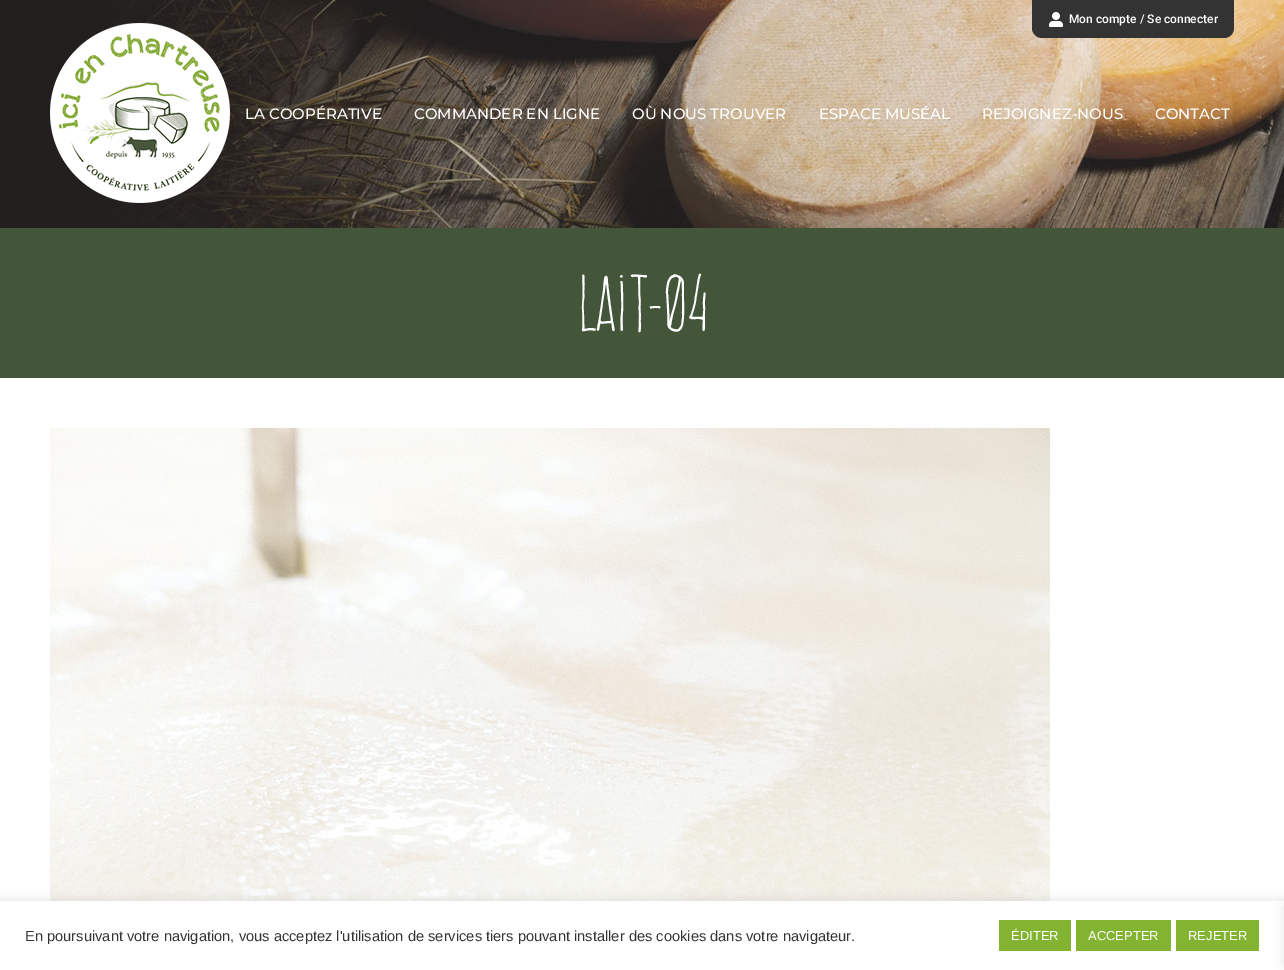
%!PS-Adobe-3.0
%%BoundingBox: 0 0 1284 970
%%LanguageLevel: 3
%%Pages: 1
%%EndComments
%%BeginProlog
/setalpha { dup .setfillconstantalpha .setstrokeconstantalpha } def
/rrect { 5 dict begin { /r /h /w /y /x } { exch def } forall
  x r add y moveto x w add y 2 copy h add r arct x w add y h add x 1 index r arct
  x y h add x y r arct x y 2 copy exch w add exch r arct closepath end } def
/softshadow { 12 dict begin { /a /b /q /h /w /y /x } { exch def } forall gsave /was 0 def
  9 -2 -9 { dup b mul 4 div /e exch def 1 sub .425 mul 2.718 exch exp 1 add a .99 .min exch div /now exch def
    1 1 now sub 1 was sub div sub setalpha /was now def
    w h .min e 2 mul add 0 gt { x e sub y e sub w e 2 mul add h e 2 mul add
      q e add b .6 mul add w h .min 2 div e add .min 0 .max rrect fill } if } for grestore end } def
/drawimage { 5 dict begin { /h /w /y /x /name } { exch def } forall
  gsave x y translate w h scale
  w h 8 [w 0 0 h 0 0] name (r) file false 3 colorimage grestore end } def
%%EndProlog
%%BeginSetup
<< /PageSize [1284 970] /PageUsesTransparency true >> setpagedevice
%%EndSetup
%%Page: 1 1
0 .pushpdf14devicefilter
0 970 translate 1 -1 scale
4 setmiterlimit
1 setgray
0 0 1284 970 rectfill
(images/1.raw) 0 0 1284 228 drawimage
0.2 setgray
newpath 1032 0 moveto 1234 0 lineto 1234 28 lineto 1234 33.5 1229.5 38 1224 38 curveto 1042 38 lineto 1036.5 38 1032 33.5 1032 28 curveto closepath fill
(images/2.raw) 1049 12 14 15 drawimage
(images/3.raw) 50 23 180 180 drawimage
0.263 0.337 0.227 setrgbcolor
0 228 1284 150 rectfill
(images/4.raw) 50 428 1000 473 drawimage
0.675 0.671 0.671 setrgbcolor
0 900 1284 69 0 5 0.3 softshadow
1 setgray
0 901 1284 69 rectfill
0.51 0.706 0.192 setrgbcolor
999 920 72 31 rectfill
1076 920 95 31 rectfill
1176 920 83 31 rectfill
0 setgray
1284 905 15 60 0 5 0.1 softshadow
/Roboto-Medium [12 0 0 -12 0 0] selectfont
1 setgray
1069 23 moveto (Mon compte / Se connecter) show
/Montserrat-Medium [15 0 0 -15 0 0] selectfont
245 119 moveto (LA COOPÉRATIVE) show
414 119 moveto (COMMANDER EN LIGNE) show
632 119 moveto (OÙ NOUS TROUVER) show
819 119 moveto (ESPACE MUSÉAL) show
982 119 moveto (REJOIGNEZ-NOUS) show
1155 119 moveto (CONTACT) show
/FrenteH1-Regular [70 0 0 -70 0 0] selectfont
577 331 moveto (lait-04) show
/LiberationSans-Regular [14.67 0 0 -14.67 0 0] selectfont
0.2 setgray
25 941 moveto (En poursuivant votre navigation, vous acceptez l'utilisation de services tiers pouvant installer des cookies dans votre navigateur.) show
/LiberationSans-Regular [13 0 0 -13 0 0] selectfont
1 setgray
1011 940 moveto (ÉDITER) show
1088 940 moveto (ACCEPTER) show
1188 940 moveto (REJETER) show
.poppdf14devicefilter showpage
%%EOF
